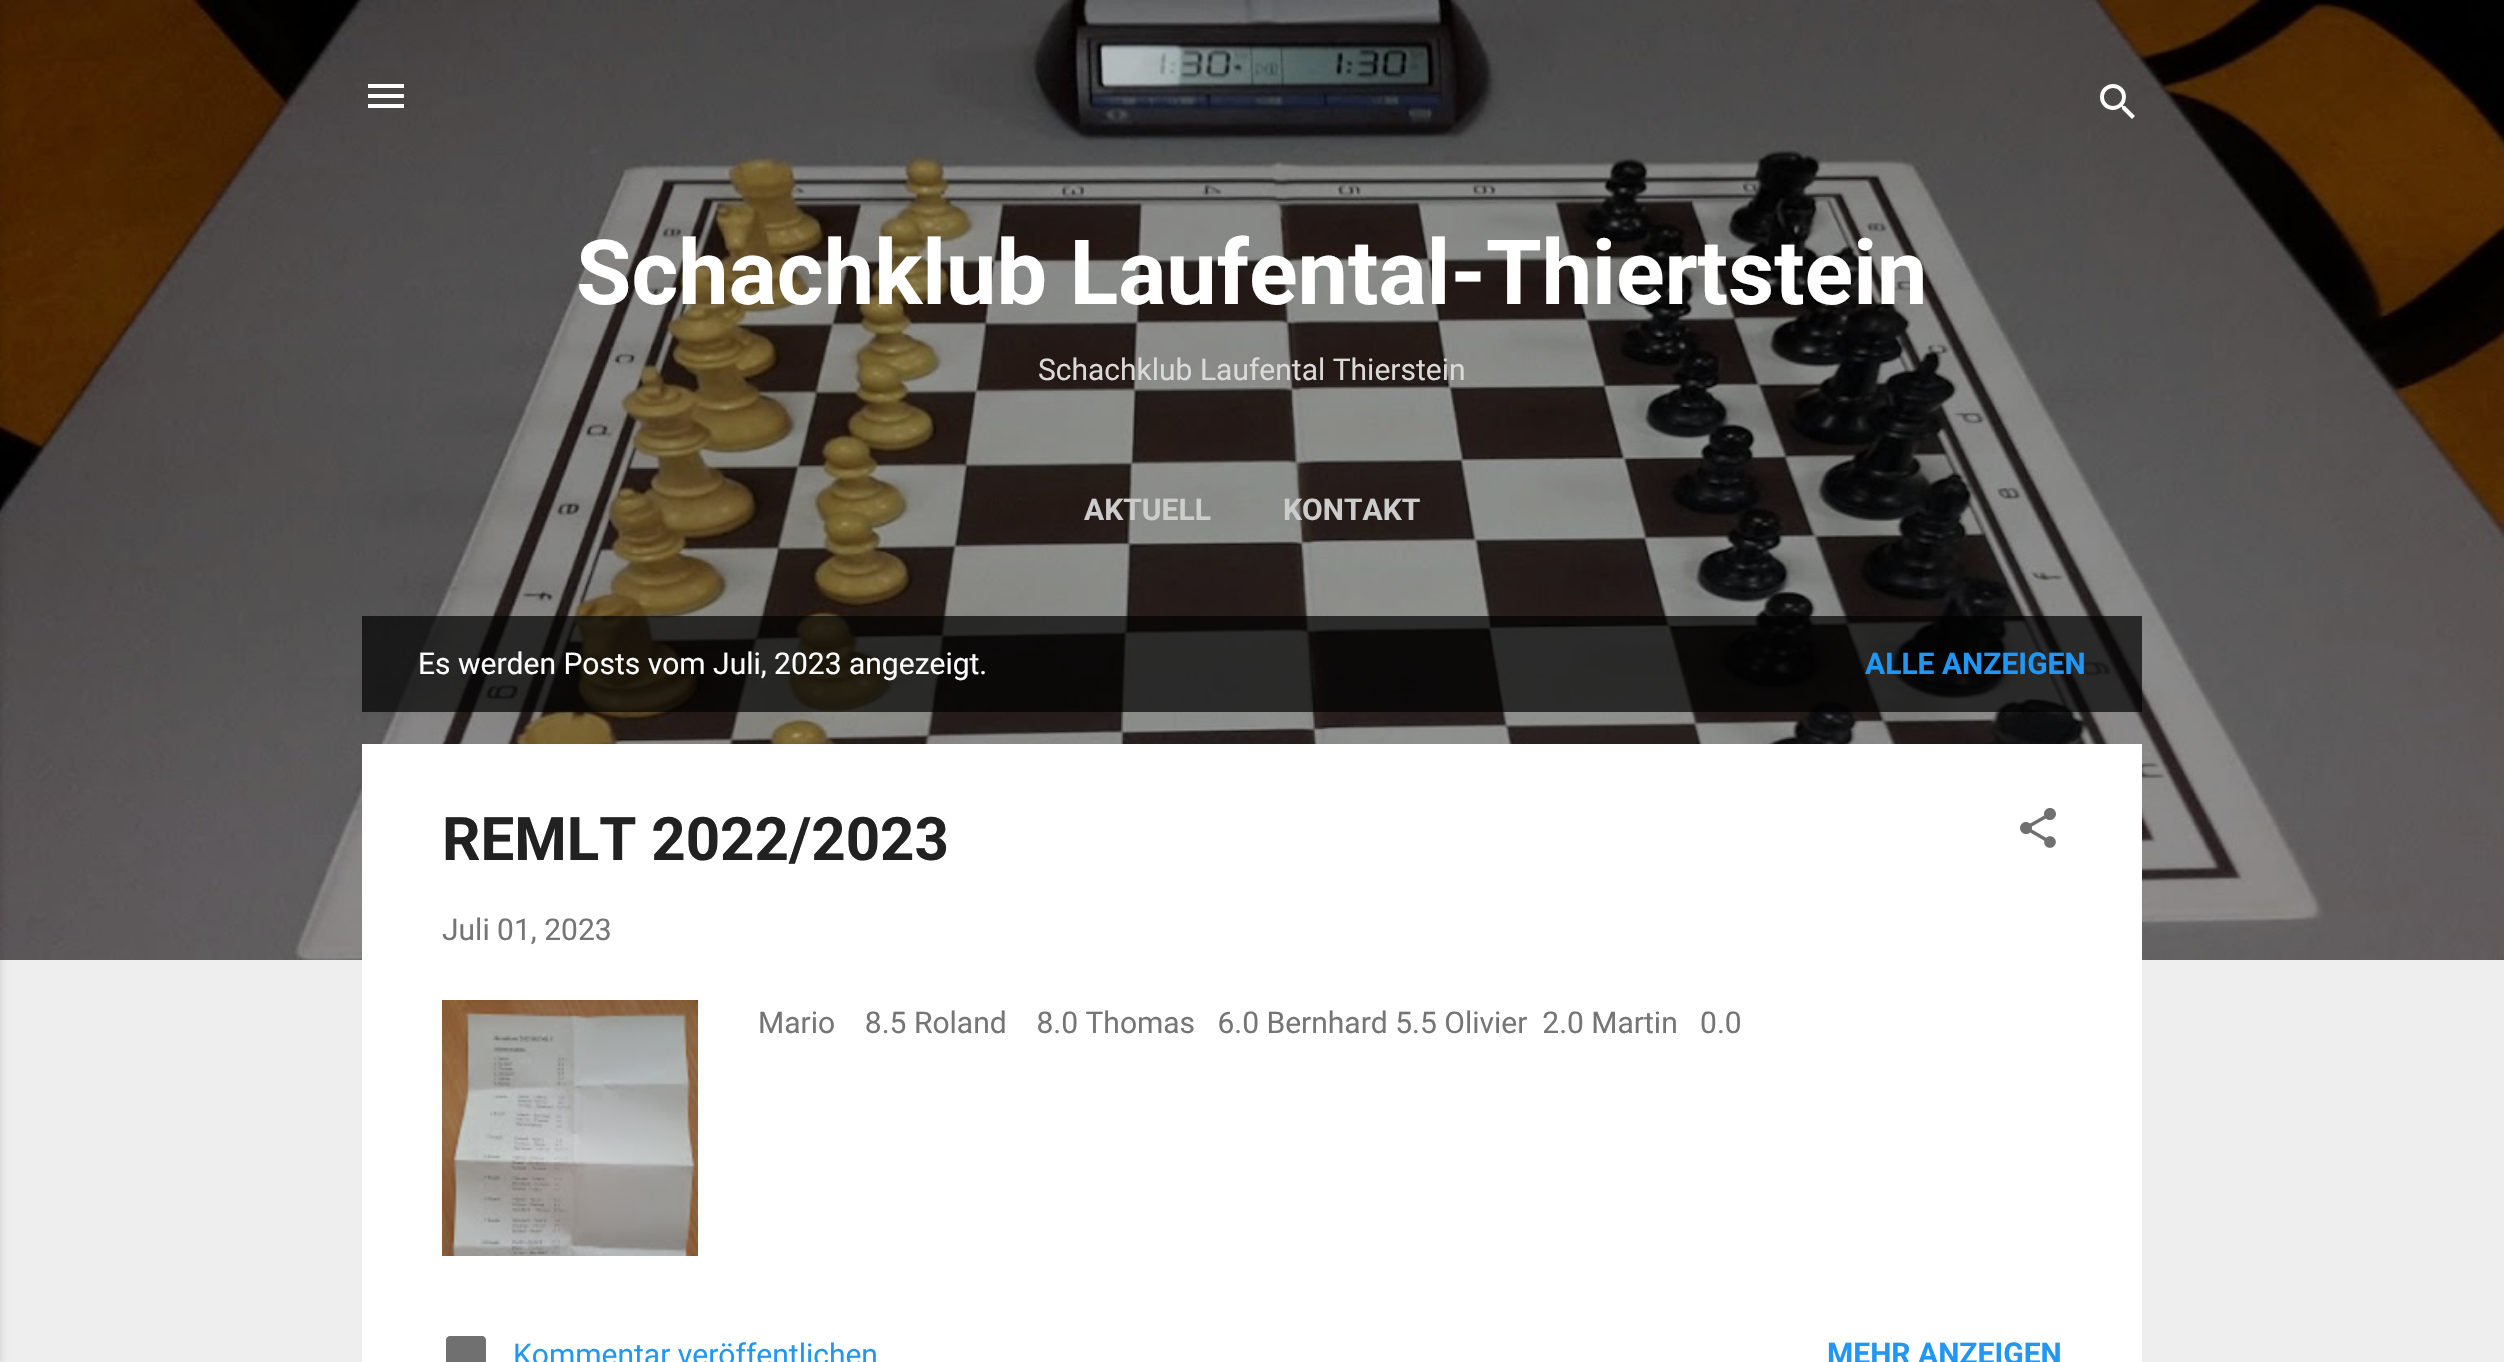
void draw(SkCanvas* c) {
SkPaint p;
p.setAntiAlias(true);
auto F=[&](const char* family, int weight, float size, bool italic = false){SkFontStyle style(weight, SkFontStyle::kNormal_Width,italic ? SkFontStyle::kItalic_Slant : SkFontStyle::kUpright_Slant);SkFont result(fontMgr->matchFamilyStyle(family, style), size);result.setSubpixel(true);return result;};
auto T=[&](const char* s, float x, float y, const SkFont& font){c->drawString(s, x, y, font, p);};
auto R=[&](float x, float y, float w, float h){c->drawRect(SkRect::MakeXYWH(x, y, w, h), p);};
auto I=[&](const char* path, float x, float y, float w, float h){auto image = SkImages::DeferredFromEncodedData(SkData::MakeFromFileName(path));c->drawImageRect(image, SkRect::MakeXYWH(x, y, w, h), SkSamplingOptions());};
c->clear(0xffeeeeee);
I("1.png",0,0,2504,960);
p.setColor(0x1a000000);
p.setMaskFilter(SkMaskFilter::MakeBlur(kNormal_SkBlurStyle, 3));
c->drawRect(SkRect::MakeXYWH(-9,2,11,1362),p);
p.setMaskFilter(nullptr);
I("2.png",368,84,36,24);
I("3.png",2100,84,35,35);
auto f1 = F("Roboto",700,90);
p.setColor(0xffffffff);
T("Schachklub Laufental-Thiertstein",576,304,f1);
auto f2 = F("Roboto",400,30);
p.setColor(0xffdbdad9);
T("Schachklub Laufental Thierstein",1038,380,f2);
auto f3 = F("Roboto",700,30);
p.setColor(0xffcccccc);
T("AKTUELL",1084,520,f3);
T("KONTAKT",1283,520,f3);
p.setColor(0xb3000000);
R(362,616,1780,96);
p.setColor(0xffffffff);
T("Es werden Posts vom Juli, 2023 angezeigt.",418,674,f2);
p.setColor(0xff2196f3);
T("ALLE ANZEIGEN",1865,674,f3);
p.setColor(0xffffffff);
R(362,744,1780,618);
auto f4 = F("Roboto",700,60);
p.setColor(0xff212121);
T("REMLT 2022/2023",442,860,f4);
I("4.png",2020,808,36,40);
p.setColor(0xff757575);
T("Juli 01, 2023",442,940,f2);
I("5.png",442,1000,256,256);
T("Mario    8.5 Roland    8.0 Thomas   6.0 Bernhard 5.5 Olivier  2.0 Martin   0.0",758,1033,f2);
I("6.png",446,1336,40,26);
p.setColor(0xff2196f3);
T("Kommentar veröffentlichen",513,1365,f2);
T("MEHR ANZEIGEN",1827,1364,f3);
}
